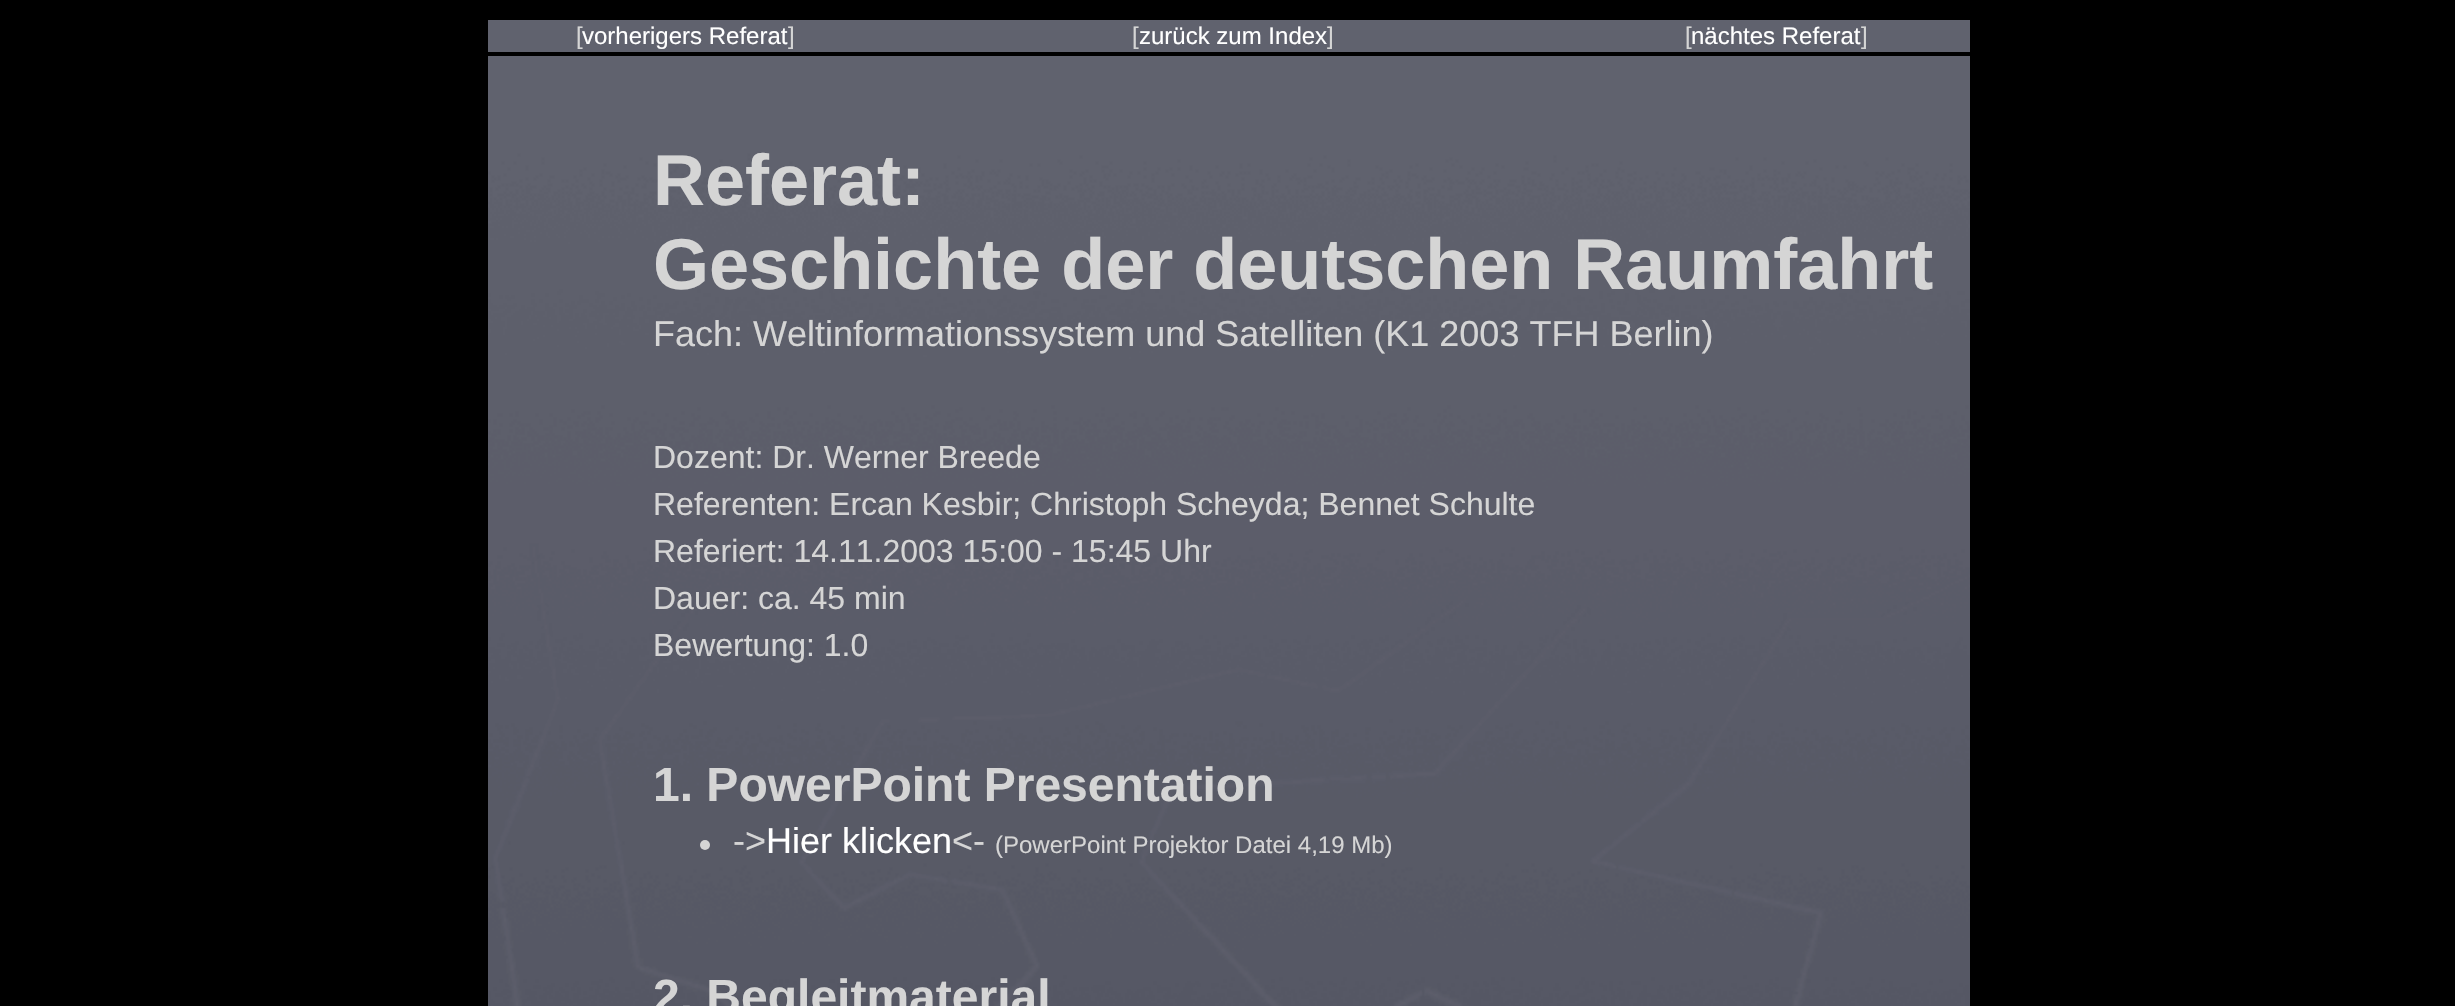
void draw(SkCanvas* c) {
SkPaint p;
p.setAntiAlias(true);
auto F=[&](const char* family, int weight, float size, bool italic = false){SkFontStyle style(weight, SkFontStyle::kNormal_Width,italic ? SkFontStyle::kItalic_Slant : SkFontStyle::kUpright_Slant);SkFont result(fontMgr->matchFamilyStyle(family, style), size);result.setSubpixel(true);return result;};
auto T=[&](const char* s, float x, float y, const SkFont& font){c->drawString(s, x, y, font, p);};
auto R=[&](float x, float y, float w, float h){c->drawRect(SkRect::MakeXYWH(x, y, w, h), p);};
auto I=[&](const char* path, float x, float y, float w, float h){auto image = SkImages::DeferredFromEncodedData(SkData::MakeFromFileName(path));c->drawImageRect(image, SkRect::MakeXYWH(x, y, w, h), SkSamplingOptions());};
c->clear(0xff000000);
p.setColor(0xff60626e);
R(488,20,1482,32);
auto f1 = F("Liberation Sans",400,24);
p.setColor(0xffd5d5d5);
T("[",576,44,f1);
p.setColor(0xffffffff);
T("vorherigers Referat",582,44,f1);
p.setColor(0xffd5d5d5);
T("]",788,44,f1);
T("[",1132,44,f1);
p.setColor(0xffffffff);
T("zurück zum Index",1139,44,f1);
p.setColor(0xffd5d5d5);
T("]",1327,44,f1);
T("[",1685,44,f1);
p.setColor(0xffffffff);
T("nächtes Referat",1691,44,f1);
p.setColor(0xffd5d5d5);
T("]",1861,44,f1);
I("1.png",488,56,1482,950);
auto f2 = F("Liberation Sans",700,72);
T("Referat:",653,205,f2);
T("Geschichte der deutschen Raumfahrt",653,289,f2);
auto f3 = F("Liberation Sans",400,36);
T("Fach: Weltinformationssystem und Satelliten (K1 2003 TFH Berlin)",653,346,f3);
auto f4 = F("Liberation Sans",400,32);
T("Dozent: Dr. Werner Breede",653,468,f4);
T("Referenten: Ercan Kesbir; Christoph Scheyda; Bennet Schulte",653,515,f4);
T("Referiert: 14.11.2003 15:00 - 15:45 Uhr",653,562,f4);
T("Dauer: ca. 45 min",653,609,f4);
T("Bewertung: 1.0",653,656,f4);
auto f5 = F("Liberation Sans",700,48);
T("1. PowerPoint Presentation",653,801,f5);
c->drawCircle(705,845,5,p);
T("->",733,853,f3);
p.setColor(0xffffffff);
T("Hier klicken",766,853,f3);
p.setColor(0xffd5d5d5);
T("<-",952,853,f3);
T("(PowerPoint Projektor Datei 4,19 Mb)",995,853,f1);
T("2. Begleitmaterial",653,1013,f5);
}
